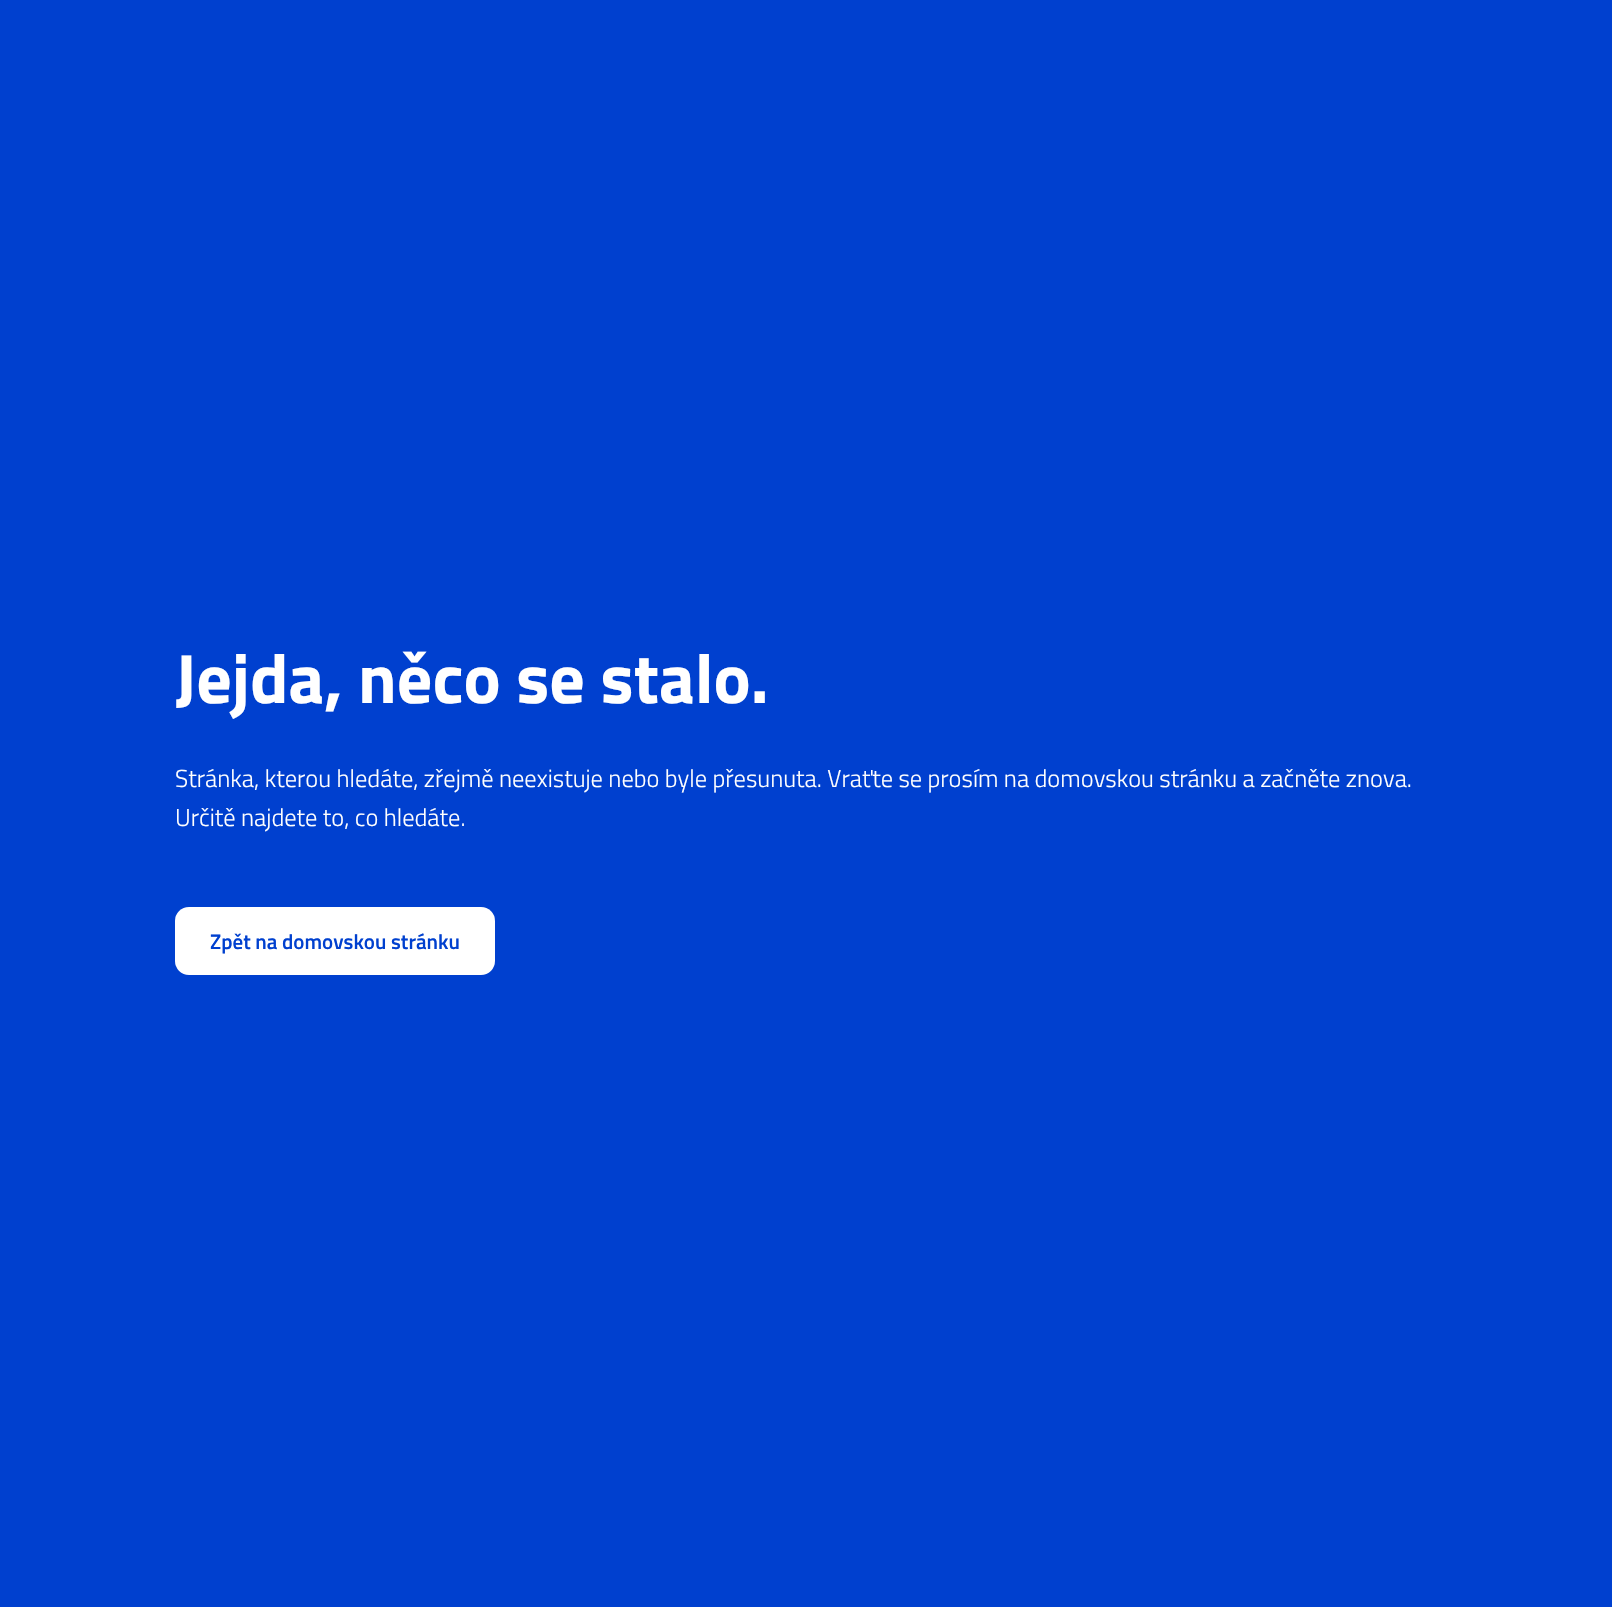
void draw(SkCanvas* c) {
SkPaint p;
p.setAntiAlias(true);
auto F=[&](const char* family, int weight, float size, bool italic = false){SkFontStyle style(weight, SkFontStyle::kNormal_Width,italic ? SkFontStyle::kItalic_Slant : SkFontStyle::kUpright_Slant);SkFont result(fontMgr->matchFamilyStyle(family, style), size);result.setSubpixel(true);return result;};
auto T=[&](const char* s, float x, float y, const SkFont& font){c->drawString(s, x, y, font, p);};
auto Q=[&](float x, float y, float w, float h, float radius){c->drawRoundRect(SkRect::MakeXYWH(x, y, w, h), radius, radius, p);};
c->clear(0xff0040cf);
auto f1 = F("Titillium Web",700,70);
p.setColor(0xffffffff);
T("Jejda, něco se stalo.",175,703,f1);
auto f2 = F("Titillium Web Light",300,24.5);
T("Stránka, kterou hledáte, zřejmě neexistuje nebo byle přesunuta. Vraťte se prosím na domovskou stránku a začněte znova.",175,787,f2);
T("Určitě najdete to, co hledáte.",175,826,f2);
Q(175,907,320,68,14);
auto f3 = F("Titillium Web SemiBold",600,21);
p.setColor(0xff0040cf);
T("Zpět na domovskou stránku",210,949,f3);
}
